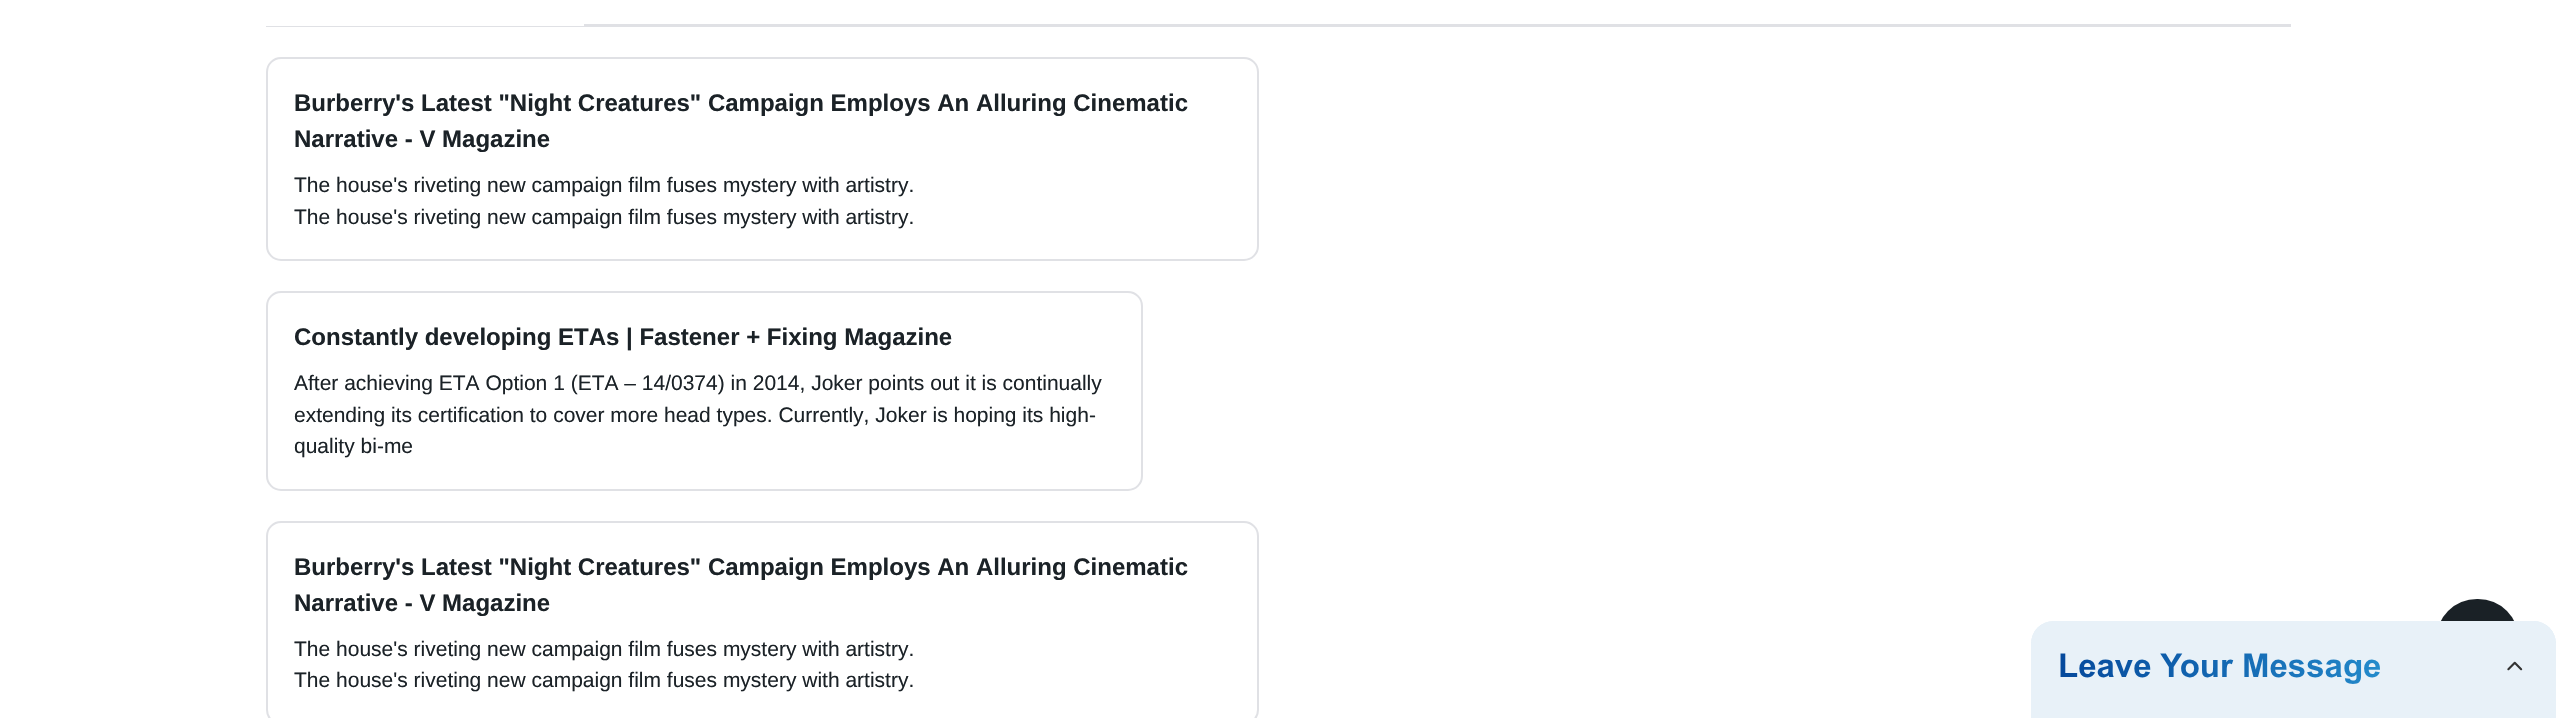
void draw(SkCanvas* c) {
SkPaint p;
p.setAntiAlias(true);
auto F=[&](const char* family, int weight, float size, bool italic = false){SkFontStyle style(weight, SkFontStyle::kNormal_Width,italic ? SkFontStyle::kItalic_Slant : SkFontStyle::kUpright_Slant);SkFont result(fontMgr->matchFamilyStyle(family, style), size);result.setSubpixel(true);return result;};
auto T=[&](const char* s, float x, float y, const SkFont& font){c->drawString(s, x, y, font, p);};
auto R=[&](float x, float y, float w, float h){c->drawRect(SkRect::MakeXYWH(x, y, w, h), p);};
auto Q=[&](float x, float y, float w, float h, float radius){c->drawRoundRect(SkRect::MakeXYWH(x, y, w, h), radius, radius, p);};
auto I=[&](const char* path, float x, float y, float w, float h){auto image = SkImages::DeferredFromEncodedData(SkData::MakeFromFileName(path));c->drawImageRect(image, SkRect::MakeXYWH(x, y, w, h), SkSamplingOptions());};
c->clear(0xffffffff);
p.setColor(0xffe0e1e5);
R(266,24,2025,3);
p.setColor(0xffffffff);
R(266,24,318,2);
p.setStroke(true);
p.setStrokeWidth(2);
p.setColor(0xffe0e1e5);
c->drawRoundRect(SkRect::MakeXYWH(267,58,991,202),14,14,p);
auto f1 = F("Liberation Sans",700,24);
p.setStroke(false);
p.setColor(0xff1b2227);
T("Burberry's Latest \"Night Creatures\" Campaign Employs An Alluring Cinematic",294,111,f1);
T("Narrative - V Magazine",294,147,f1);
auto f2 = F("Liberation Sans",400,21);
T("The house's riveting new campaign film fuses mystery with artistry.",294,192,f2);
T("The house's riveting new campaign film fuses mystery with artistry.",294,224,f2);
p.setStroke(true);
p.setColor(0xffe0e1e5);
c->drawRoundRect(SkRect::MakeXYWH(267,292,875,198),14,14,p);
p.setStroke(false);
p.setColor(0xff1b2227);
T("Constantly developing ETAs | Fastener + Fixing Magazine",294,345,f1);
T("After achieving ETA Option 1 (ETA – 14/0374) in 2014, Joker points out it is continually",294,390,f2);
T("extending its certification to cover more head types. Currently, Joker is hoping its high-",294,422,f2);
T("quality bi-me",294,453,f2);
p.setStroke(true);
p.setColor(0xffe0e1e5);
c->drawRoundRect(SkRect::MakeXYWH(267,522,991,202),14,14,p);
p.setStroke(false);
p.setColor(0xff1b2227);
T("Burberry's Latest \"Night Creatures\" Campaign Employs An Alluring Cinematic",294,575,f1);
T("Narrative - V Magazine",294,611,f1);
T("The house's riveting new campaign film fuses mystery with artistry.",294,656,f2);
T("The house's riveting new campaign film fuses mystery with artistry.",294,687,f2);
p.setColor(0xff1a2126);
Q(2436,599,83,82,41);
I("1.png",2031,621,525,97);
}
